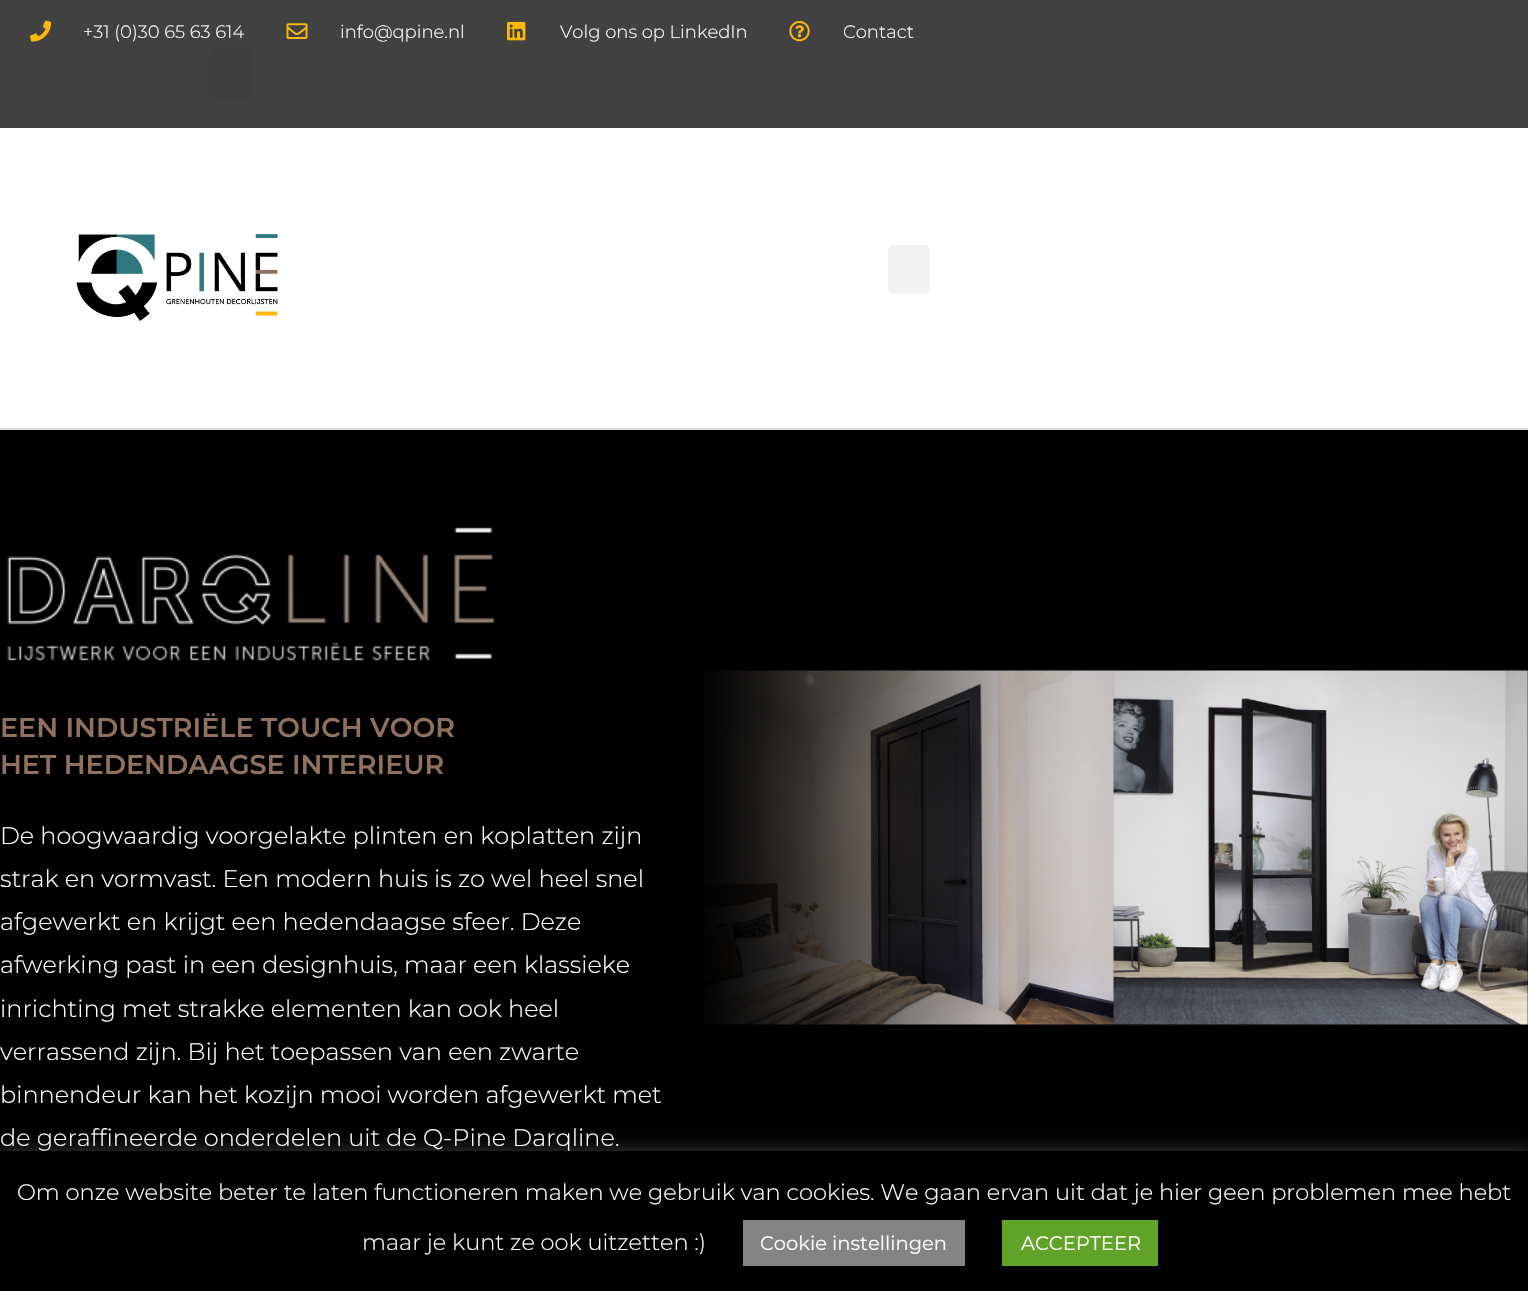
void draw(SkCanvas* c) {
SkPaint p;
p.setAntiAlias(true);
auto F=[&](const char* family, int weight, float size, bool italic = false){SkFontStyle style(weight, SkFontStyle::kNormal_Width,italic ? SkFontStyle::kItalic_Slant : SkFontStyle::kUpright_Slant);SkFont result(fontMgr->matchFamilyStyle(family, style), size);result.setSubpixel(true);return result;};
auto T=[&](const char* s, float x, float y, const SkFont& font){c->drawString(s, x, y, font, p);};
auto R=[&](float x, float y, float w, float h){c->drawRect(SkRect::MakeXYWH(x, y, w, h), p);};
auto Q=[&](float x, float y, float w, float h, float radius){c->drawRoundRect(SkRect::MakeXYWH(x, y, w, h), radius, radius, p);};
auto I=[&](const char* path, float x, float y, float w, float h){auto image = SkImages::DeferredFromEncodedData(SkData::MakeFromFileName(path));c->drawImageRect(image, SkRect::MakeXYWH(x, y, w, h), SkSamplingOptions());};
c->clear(0xff000000);
p.setColor(0xff414141);
R(0,0,1528,128);
I("1.png",30,20,21,22);
auto f1 = F("Montserrat",300,18);
p.setColor(0xffffffff);
T("+31 (0)30 65 63 614",83,38,f1);
I("2.png",286,23,22,16);
T("info@qpine.nl",340,38,f1);
I("3.png",507,21,19,20);
T("Volg ons op LinkedIn",560,38,f1);
I("4.png",789,21,21,21);
T("Contact",843,38,f1);
p.setColor(0xff3e3e3e);
Q(209,48,42,50,5);
p.setColor(0xffffffff);
R(0,128,1528,300);
p.setColor(0xffd8d8d8);
R(0,428,1528,2);
I("5.png",76,234,202,87);
p.setColor(0xfff2f2f2);
Q(888,245,42,49,5);
I("6.png",7,527,489,134);
auto f2 = F("Montserrat",600,27);
p.setColor(0xff91705d);
T("EEN INDUSTRIËLE TOUCH VOOR",0,737,f2);
T("HET HEDENDAAGSE INTERIEUR",0,774,f2);
auto f3 = F("Montserrat",300,24);
p.setColor(0xffffffff);
T("De hoogwaardig voorgelakte plinten en koplatten zijn",0,844,f3);
T("strak en vormvast. Een modern huis is zo wel heel snel",0,887,f3);
T("afgewerkt en krijgt een hedendaagse sfeer. Deze",0,930,f3);
T("afwerking past in een designhuis, maar een klassieke",0,973,f3);
T("inrichting met strakke elementen kan ook heel",0,1017,f3);
T("verrassend zijn. Bij het toepassen van een zwarte",0,1060,f3);
T("binnendeur kan het kozijn mooi worden afgewerkt met",0,1103,f3);
T("de geraffineerde onderdelen uit de Q-Pine Darqline.",0,1146,f3);
I("7.png",704,670,824,355);
p.setColor(0x4dacabab);
p.setMaskFilter(SkMaskFilter::MakeBlur(kNormal_SkBlurStyle, 7.5));
c->drawRect(SkRect::MakeXYWH(0,1149,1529,141),p);
p.setMaskFilter(nullptr);
p.setColor(0xff000000);
R(0,1151,1528,140);
auto f4 = F("Montserrat",300,22.5);
p.setColor(0xffffffff);
T("Om onze website beter te laten functioneren maken we gebruik van cookies. We gaan ervan uit dat je hier geen problemen mee hebt",17,1200,f4);
T("maar je kunt ze ook uitzetten :)",362,1250,f4);
p.setColor(0xff848484);
R(743,1220,222,46);
auto f5 = F("Montserrat",400,19.5);
p.setColor(0xffffffff);
T("Cookie instellingen",760,1250,f5);
p.setColor(0xff61a229);
R(1002,1220,156,46);
p.setColor(0xffffffff);
T("ACCEPTEER",1021,1250,f5);
}
